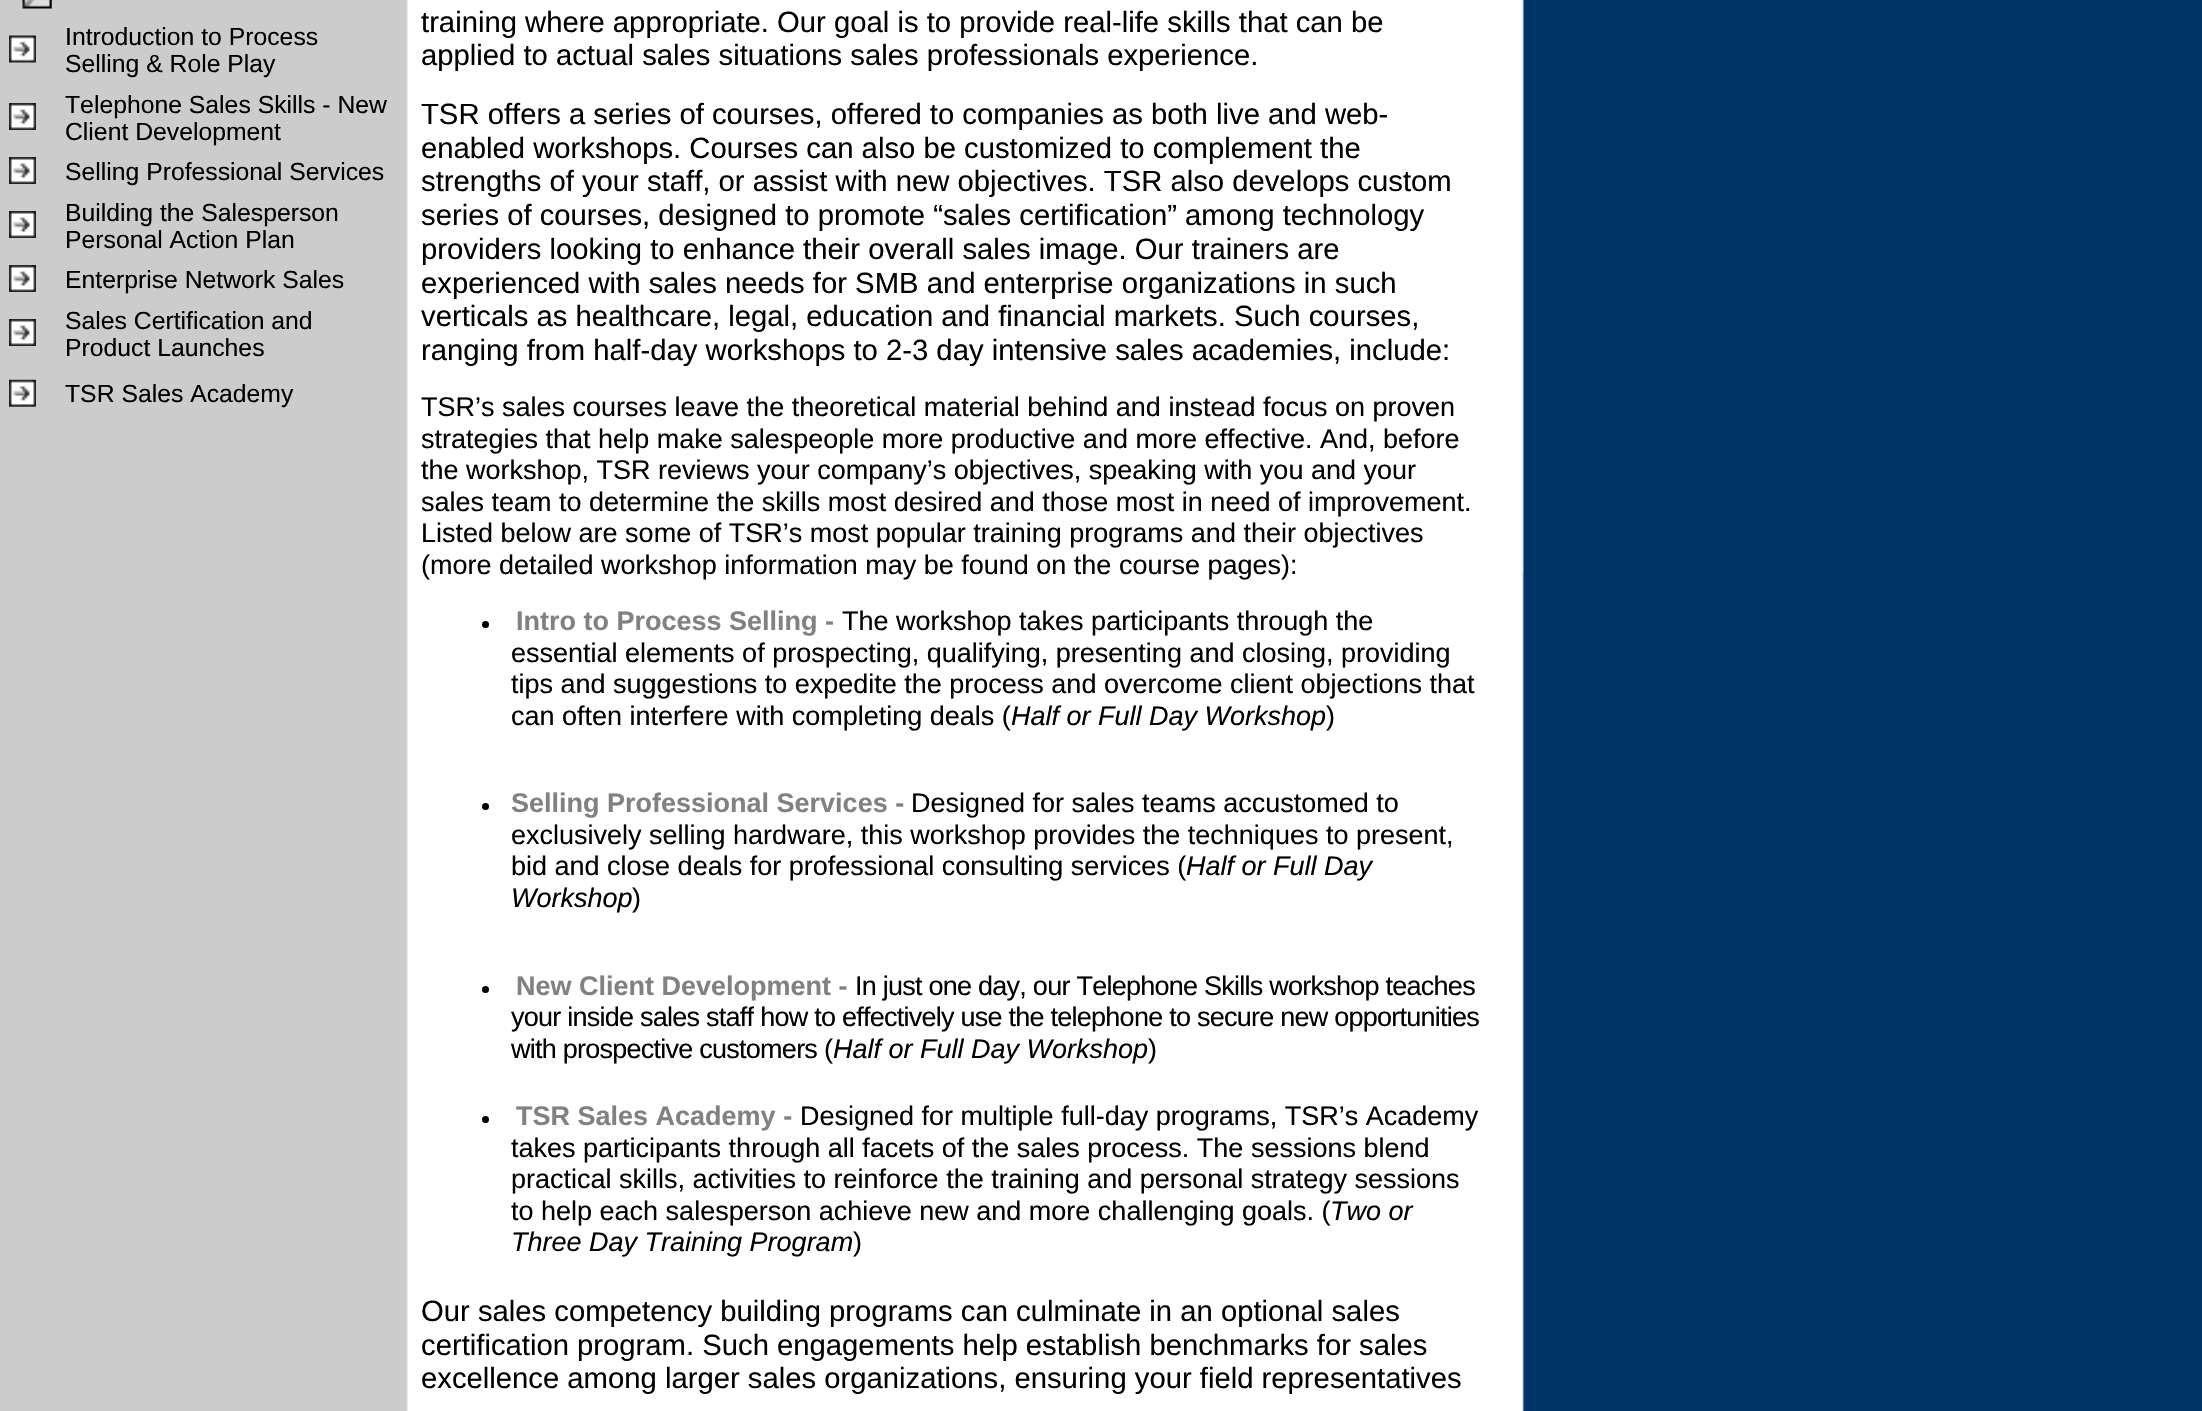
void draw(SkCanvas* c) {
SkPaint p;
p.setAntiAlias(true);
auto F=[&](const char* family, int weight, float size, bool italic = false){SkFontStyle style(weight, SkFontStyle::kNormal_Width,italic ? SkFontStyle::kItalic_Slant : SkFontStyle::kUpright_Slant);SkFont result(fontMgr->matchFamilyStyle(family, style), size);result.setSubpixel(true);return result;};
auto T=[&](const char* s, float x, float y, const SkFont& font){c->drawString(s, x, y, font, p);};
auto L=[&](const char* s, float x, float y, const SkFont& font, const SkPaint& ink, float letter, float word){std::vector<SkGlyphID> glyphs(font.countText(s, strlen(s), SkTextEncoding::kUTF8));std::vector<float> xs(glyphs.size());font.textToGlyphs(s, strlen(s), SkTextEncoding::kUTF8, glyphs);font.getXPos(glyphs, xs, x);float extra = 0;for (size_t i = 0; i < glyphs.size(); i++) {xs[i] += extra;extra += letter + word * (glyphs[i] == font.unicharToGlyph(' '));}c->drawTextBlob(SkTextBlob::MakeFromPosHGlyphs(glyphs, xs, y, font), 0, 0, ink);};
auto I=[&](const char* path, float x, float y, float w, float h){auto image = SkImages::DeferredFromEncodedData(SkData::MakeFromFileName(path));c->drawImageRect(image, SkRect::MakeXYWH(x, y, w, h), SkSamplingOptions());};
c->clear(0xffffffff);
I("1.png",0,0,2202,1411);
I("2.png",22,0,30,9);
I("3.png",9,35,27,28);
auto f1 = F("Liberation Sans",400,24.75);
p.setColor(0xff000000);
T("Introduction to Process",65,45,f1);
T("Selling & Role Play",65,72,f1);
I("4.png",9,103,27,27);
T("Telephone Sales Skills - New",65,113,f1);
T("Client Development",65,140,f1);
I("4.png",9,157,27,27);
T("Selling Professional Services",65,180,f1);
I("4.png",9,211,27,27);
T("Building the Salesperson",65,221,f1);
T("Personal Action Plan",65,248,f1);
I("4.png",9,265,27,27);
T("Enterprise Network Sales",65,288,f1);
I("4.png",9,319,27,27);
T("Sales Certification and",65,329,f1);
T("Product Launches",65,356,f1);
I("5.png",9,379,27,28);
T("TSR Sales Academy",65,402,f1);
auto f2 = F("Liberation Sans",400,29.25);
T("training where appropriate. Our goal is to provide real-life skills that can be",421,32,f2);
T("applied to actual sales situations sales professionals experience.",421,65,f2);
T("TSR offers a series of courses, offered to companies as both live and web-",421,124,f2);
T("enabled workshops. Courses can also be customized to complement the",421,158,f2);
T("strengths of your staff, or assist with new objectives. TSR also develops custom",421,191,f2);
T("series of courses, designed to promote “sales certification” among technology",421,225,f2);
T("providers looking to enhance their overall sales image. Our trainers are",421,259,f2);
T("experienced with sales needs for SMB and enterprise organizations in such",421,293,f2);
T("verticals as healthcare, legal, education and financial markets. Such courses,",421,326,f2);
T("ranging from half-day workshops to 2-3 day intensive sales academies, include:",421,360,f2);
auto f3 = F("Liberation Sans",400,27);
T("TSR’s sales courses leave the theoretical material behind and instead focus on proven",421,416,f3);
T("strategies that help make salespeople more productive and more effective. And, before",421,448,f3);
T("the workshop, TSR reviews your company’s objectives, speaking with you and your",421,479,f3);
T("sales team to determine the skills most desired and those most in need of improvement.",421,511,f3);
T("Listed below are some of TSR’s most popular training programs and their objectives",421,542,f3);
T("(more detailed workshop information may be found on the course pages):",421,574,f3);
c->drawCircle(485.5,624.5,3.5,p);
auto f4 = F("Liberation Sans",700,27);
p.setColor(0xff818181);
T("Intro to Process Selling -",516,630,f4);
p.setColor(0xff000000);
T("The workshop takes participants through the",842,630,f3);
T("essential elements of prospecting, qualifying, presenting and closing, providing",511,662,f3);
T("tips and suggestions to expedite the process and overcome client objections that",511,693,f3);
T("can often interfere with completing deals (",511,725,f3);
auto f5 = F("Liberation Sans",400,27,true);
T("Half or Full Day Workshop",1011,725,f5);
T(")",1326,725,f3);
c->drawCircle(485.5,806.5,3.5,p);
p.setColor(0xff818181);
T("Selling Professional Services -",511,812,f4);
p.setColor(0xff000000);
T("Designed for sales teams accustomed to",911,812,f3);
T("exclusively selling hardware, this workshop provides the techniques to present,",511,844,f3);
T("bid and close deals for professional consulting services (",511,875,f3);
T("Half or Full Day",1186,875,f5);
T("Workshop",511,907,f5);
T(")",632,907,f3);
c->drawCircle(485.5,989.5,3.5,p);
p.setColor(0xff818181);
T("New Client Development -",516,995,f4);
p.setColor(0xff000000);
L("In just one day, our Telephone Skills workshop teaches",855,995,f3,p,-.75,0);
L("your inside sales staff how to effectively use the telephone to secure new opportunities",511,1026,f3,p,-.75,0);
L("with prospective customers",511,1058,f3,p,-.75,0);
T("(",824,1058,f3);
T("Half or Full Day Workshop",833,1058,f5);
T(")",1148,1058,f3);
c->drawCircle(485.5,1119.5,3.5,p);
p.setColor(0xff818181);
T("TSR Sales Academy -",516,1125,f4);
p.setColor(0xff000000);
T("Designed for multiple full-day programs, TSR’s Academy",800,1125,f3);
T("takes participants through all facets of the sales process. The sessions blend",511,1157,f3);
T("practical skills, activities to reinforce the training and personal strategy sessions",511,1188,f3);
T("to help each salesperson achieve new and more challenging goals. (",511,1220,f3);
T("Two or",1330,1220,f5);
T("Three Day Training Program",511,1251,f5);
T(")",853,1251,f3);
T("Our sales competency building programs can culminate in an optional sales",421,1321,f2);
T("certification program. Such engagements help establish benchmarks for sales",421,1355,f2);
T("excellence among larger sales organizations, ensuring your field representatives",421,1388,f2);
I("6.png",1522,0,2,571);
}
